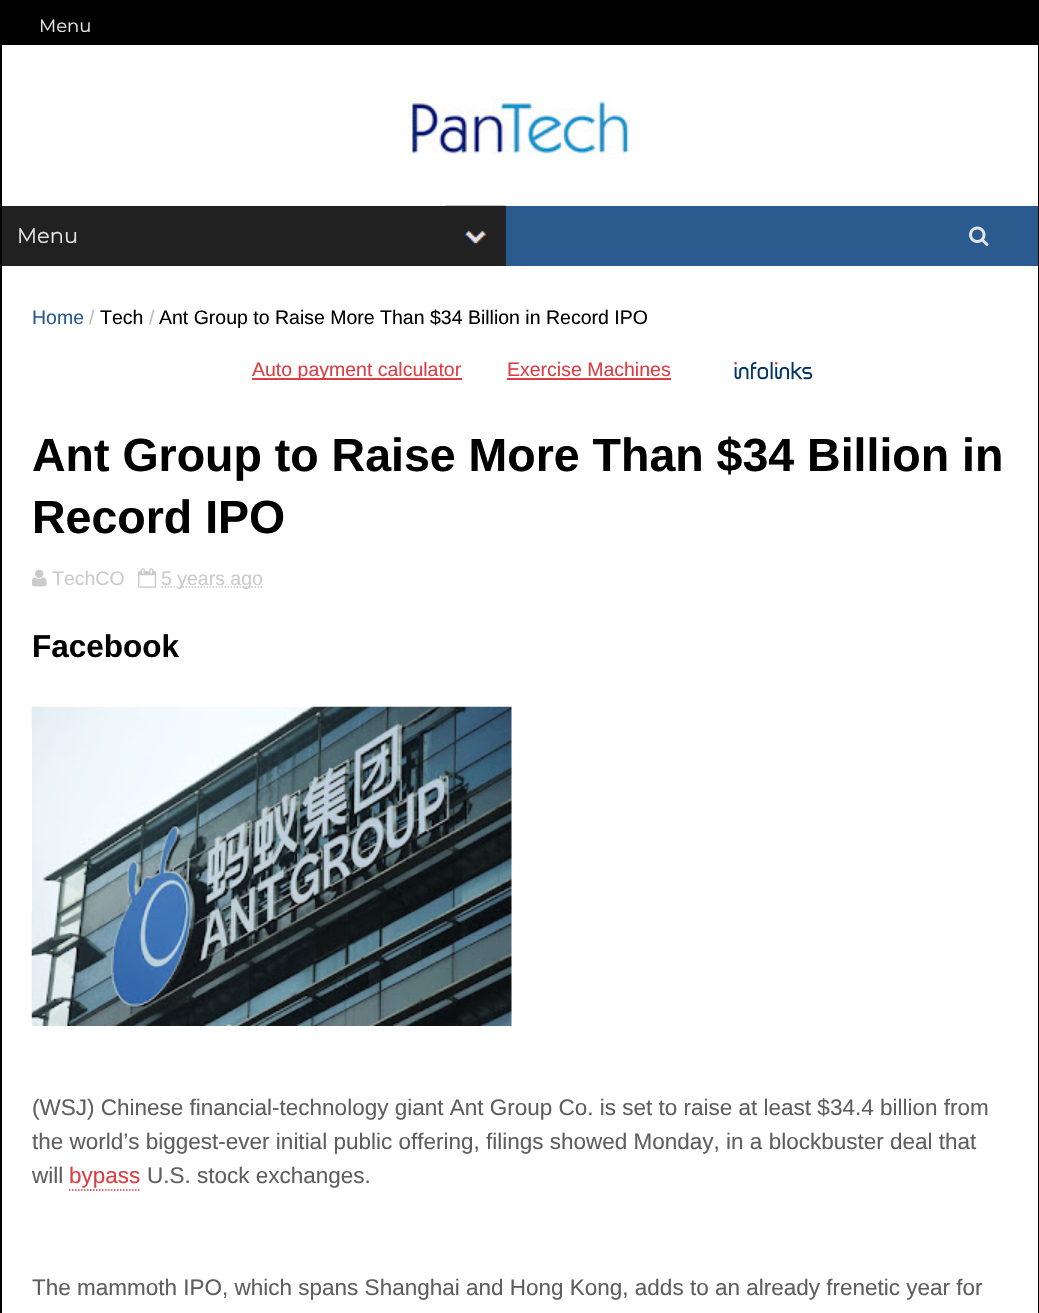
void draw(SkCanvas* c) {
SkPaint p;
p.setAntiAlias(true);
auto F=[&](const char* family, int weight, float size, bool italic = false){SkFontStyle style(weight, SkFontStyle::kNormal_Width,italic ? SkFontStyle::kItalic_Slant : SkFontStyle::kUpright_Slant);SkFont result(fontMgr->matchFamilyStyle(family, style), size);result.setSubpixel(true);return result;};
auto T=[&](const char* s, float x, float y, const SkFont& font){c->drawString(s, x, y, font, p);};
auto R=[&](float x, float y, float w, float h){c->drawRect(SkRect::MakeXYWH(x, y, w, h), p);};
auto I=[&](const char* path, float x, float y, float w, float h){auto image = SkImages::DeferredFromEncodedData(SkData::MakeFromFileName(path));c->drawImageRect(image, SkRect::MakeXYWH(x, y, w, h), SkSamplingOptions());};
auto P=[&](const char* data, bool evenOdd = false){SkPath result = *SkParsePath::FromSVGString(data);if (evenOdd) result.setFillType(SkPathFillType::kEvenOdd);return result;};
c->clear(0xffffffff);
p.setColor(0xff010101);
R(1038,0,1,1313);
R(0,0,2,1313);
R(2,0,1036,45);
auto f1 = F("Montserrat",400,18);
p.setColor(0xffe4e4e4);
T("Menu",39,32,f1);
I("1.png",408,96,225,59);
p.setColor(0xff2a5a8e);
R(506,206,532,60);
p.setColor(0xff212121);
R(2,206,504,60);
I("2.png",445,205,61,39);
auto f2 = F("Montserrat",400,21);
p.setColor(0xffe4e4e4);
T("Menu",17,243,f2);
I("3.png",969,226,20,20);
auto f3 = F("Arimo",400,19.5);
p.setColor(0xff2a5a8e);
T("Home",32,324,f3);
p.setColor(0xffbdbdbd);
T("/",89,324,f3);
p.setColor(0xff010101);
T("Tech",100,324,f3);
p.setColor(0xffbdbdbd);
T("/",149,324,f3);
p.setColor(0xff010101);
T("Ant Group to Raise More Than $34 Billion in Record IPO",159,324,f3);
p.setColor(0xffdd3c42);
R(252,378,210,2);
auto f4 = F("Liberation Sans",400,19.5);
T("Auto payment calculator",252,376,f4);
T("Exercise Machines",507,376,f4);
R(507,378,164,2);
I("4.png",734,362,79,18);
auto f5 = F("Arimo",700,46.5);
p.setColor(0xff010101);
T("Ant Group to Raise More Than $34 Billion in",32,471,f5);
T("Record IPO",32,533,f5);
I("5.png",32,569,15,18);
p.setColor(0xffcbcbcb);
T("TechCO",52,585,f3);
I("6.png",138,568,19,20);
p.setStroke(true);
p.setStrokeWidth(1.5);
p.setPathEffect(SkDashPathEffect::Make({{1.5f,1.5f}}, 0));
c->drawPath(P("M161.5 587h102"),p);
p.setPathEffect(nullptr);
p.setStroke(false);
T("5 years ago",161,585,f3);
auto f6 = F("Arimo",700,31.5);
p.setColor(0xff010101);
T("Facebook",32,657,f6);
I("7.png",31,706,481,320);
auto f7 = F("Arimo",400,22.5);
p.setColor(0xff5e5e5e);
T("(WSJ) Chinese financial-technology giant Ant Group Co. is set to raise at least $34.4 billion from",32,1115,f7);
T("the world’s biggest-ever initial public offering, filings showed Monday, in a blockbuster deal that",32,1149,f7);
T("will",32,1183,f7);
p.setColor(0xffdd3c42);
T("bypass",69,1183,f7);
p.setStroke(true);
p.setPathEffect(SkDashPathEffect::Make({{1.5f,1.5f}}, 0));
c->drawPath(P("M69 1190h72"),p);
p.setPathEffect(nullptr);
p.setStroke(false);
p.setColor(0xff5e5e5e);
T("U.S. stock exchanges.",147,1183,f7);
T("The mammoth IPO, which spans Shanghai and Hong Kong, adds to an already frenetic year for",32,1295,f7);
}
